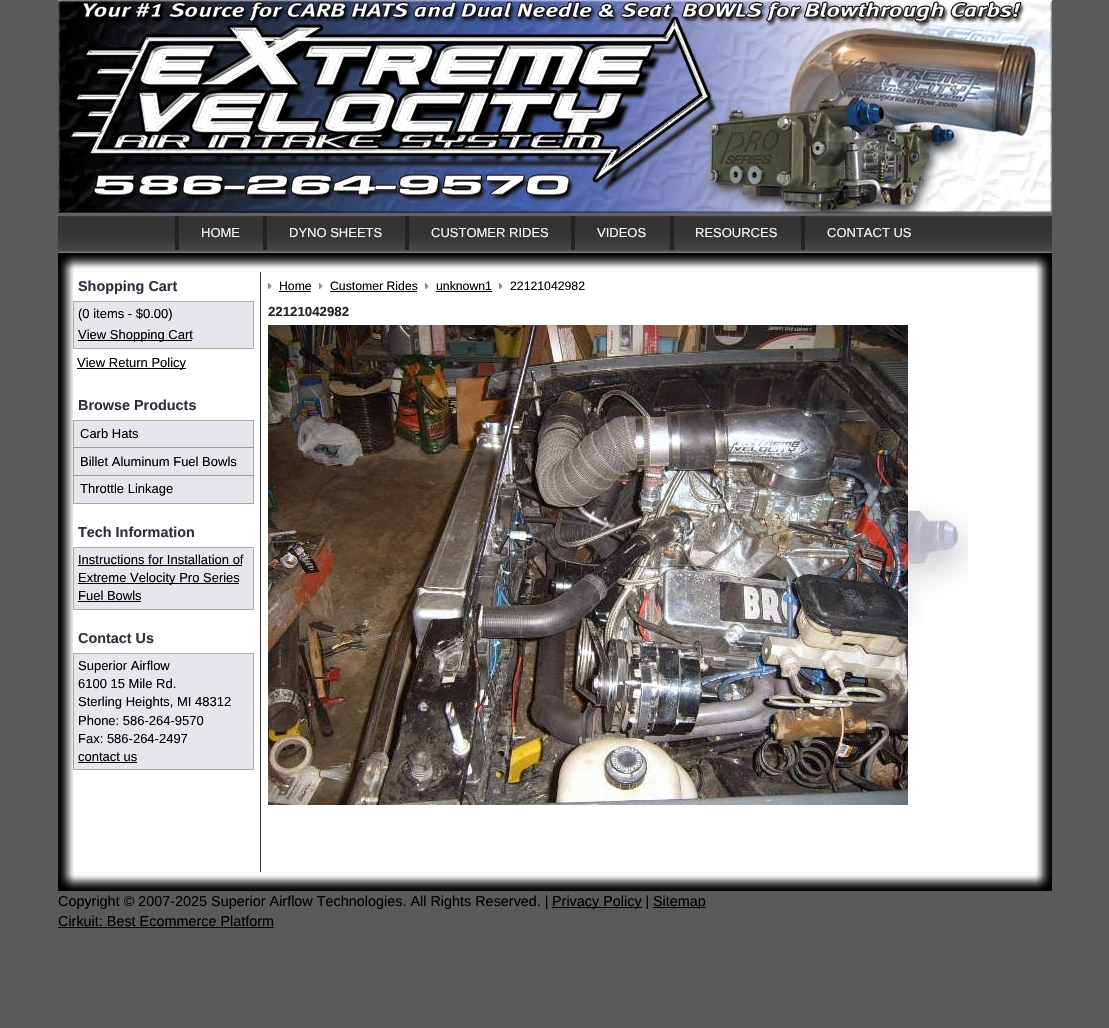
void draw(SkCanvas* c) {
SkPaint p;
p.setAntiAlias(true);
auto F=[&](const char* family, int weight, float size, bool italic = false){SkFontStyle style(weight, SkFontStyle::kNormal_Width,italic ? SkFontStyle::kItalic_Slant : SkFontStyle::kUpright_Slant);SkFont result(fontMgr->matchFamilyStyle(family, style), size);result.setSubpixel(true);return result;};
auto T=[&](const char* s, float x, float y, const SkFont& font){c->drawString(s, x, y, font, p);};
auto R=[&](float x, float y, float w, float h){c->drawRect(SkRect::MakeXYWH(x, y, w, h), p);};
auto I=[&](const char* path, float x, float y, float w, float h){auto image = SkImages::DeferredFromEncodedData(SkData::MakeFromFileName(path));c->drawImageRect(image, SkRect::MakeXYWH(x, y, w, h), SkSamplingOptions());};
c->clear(0xff5a5a5a);
I("1.png",58,0,994,213);
I("2.png",58,213,994,40);
auto f1 = F("Liberation Sans",400,13);
p.setColor(0xfff6f6f6);
T("HOME",201,237,f1);
p.setColor(0xff232323);
R(175,216,4,34);
p.setColor(0xfff6f6f6);
T("DYNO SHEETS",289,237,f1);
p.setColor(0xff232323);
R(263,216,4,34);
p.setColor(0xfff6f6f6);
T("CUSTOMER RIDES",431,237,f1);
p.setColor(0xff232323);
R(405,216,4,34);
p.setColor(0xfff6f6f6);
T("VIDEOS",597,237,f1);
p.setColor(0xff232323);
R(571,216,4,34);
p.setColor(0xfff6f6f6);
T("RESOURCES",695,237,f1);
p.setColor(0xff232323);
R(670,216,4,34);
p.setColor(0xfff6f6f6);
T("CONTACT US",827,237,f1);
p.setColor(0xff232323);
R(801,216,4,34);
I("3.png",58,272,994,600);
p.setColor(0xff000000);
R(74,253,962,1);
I("4.png",74,254,962,18);
I("5.png",58,253,16,19);
I("6.png",1036,253,16,19);
auto f2 = F("Liberation Sans",700,14.4);
p.setColor(0xff2f2f3c);
T("Shopping Cart",78,291,f2);
p.setColor(0xffe5e7ec);
c->drawRect(SkRect::MakeXYWH(73.5,301.5,180,47),p);
p.setStroke(true);
p.setStrokeWidth(1);
p.setColor(0xffaaaaaa);
c->drawRect(SkRect::MakeXYWH(73.5,301.5,180,47),p);
p.setStroke(false);
p.setColor(0xff000000);
T("(0 items - $0.00)",78,318,f1);
R(78,340,114,1);
T("View Shopping Cart",78,339,f1);
R(77,368,109,1);
T("View Return Policy",77,367,f1);
p.setColor(0xff2f2f3c);
T("Browse Products",78,410,f2);
p.setColor(0xffe5e7ec);
c->drawRect(SkRect::MakeXYWH(73.5,420.5,180,83),p);
p.setStroke(true);
p.setColor(0xffaaaaaa);
c->drawRect(SkRect::MakeXYWH(73.5,420.5,180,83),p);
p.setStroke(false);
p.setColor(0xff999999);
R(74,447,179,1);
p.setColor(0xff000000);
T("Carb Hats",80,438,f1);
p.setColor(0xff999999);
R(74,475,179,1);
p.setColor(0xff000000);
T("Billet Aluminum Fuel Bowls",80,466,f1);
T("Throttle Linkage",80,493,f1);
p.setColor(0xff2f2f3c);
T("Tech Information",78,537,f2);
p.setColor(0xffe5e7ec);
c->drawRect(SkRect::MakeXYWH(73.5,547.5,180,62),p);
p.setStroke(true);
p.setColor(0xffaaaaaa);
c->drawRect(SkRect::MakeXYWH(73.5,547.5,180,62),p);
p.setStroke(false);
p.setColor(0xff000000);
T("Instructions for Installation of",78,564,f1);
R(78,565,164,1);
R(78,583,161,1);
T("Extreme Velocity Pro Series",78,582,f1);
T("Fuel Bowls",78,600,f1);
R(78,601,63,1);
p.setColor(0xff2f2f3c);
T("Contact Us",78,643,f2);
p.setColor(0xffe5e7ec);
c->drawRect(SkRect::MakeXYWH(73.5,653.5,180,116),p);
p.setStroke(true);
p.setColor(0xffaaaaaa);
c->drawRect(SkRect::MakeXYWH(73.5,653.5,180,116),p);
p.setStroke(false);
p.setColor(0xff000000);
T("Superior Airflow",78,670,f1);
T("6100 15 Mile Rd.",78,688,f1);
T("Sterling Heights, MI 48312",78,706,f1);
T("Phone: 586-264-9570",78,725,f1);
T("Fax: 586-264-2497",78,743,f1);
T("contact us",78,761,f1);
R(78,762,59,1);
I("7.png",908,435,60,327);
p.setColor(0xff333333);
R(260,272,1,600);
I("8.png",268,283,4,6);
auto f3 = F("Liberation Sans",400,12.25);
p.setColor(0xff000000);
T("Home",279,290,f3);
R(279,291,32,1);
I("8.png",319,283,4,6);
T("Customer Rides",330,290,f3);
R(330,291,87,1);
I("8.png",425,283,4,6);
T("unknown1",436,290,f3);
R(436,291,56,1);
I("8.png",499,283,4,6);
T("22121042982",510,290,f3);
auto f4 = F("Liberation Sans",700,13.25);
p.setColor(0xff222222);
T("22121042982",268,316,f4);
I("9.png",268,325,640,480);
p.setColor(0xff000000);
R(74,890,962,1);
I("10.png",74,872,962,18);
I("11.png",58,872,16,19);
I("12.png",1036,872,16,19);
auto f5 = F("Liberation Sans",400,14.4);
T("Copyright © 2007-2025 Superior Airflow Technologies. All Rights Reserved. |",58,906,f5);
R(552,907,90,1);
T("Privacy Policy |",552,906,f5);
R(653,907,53,1);
T("Sitemap",653,906,f5);
T("Cirkuit: Best Ecommerce Platform",58,926,f5);
R(58,927,216,1);
}
